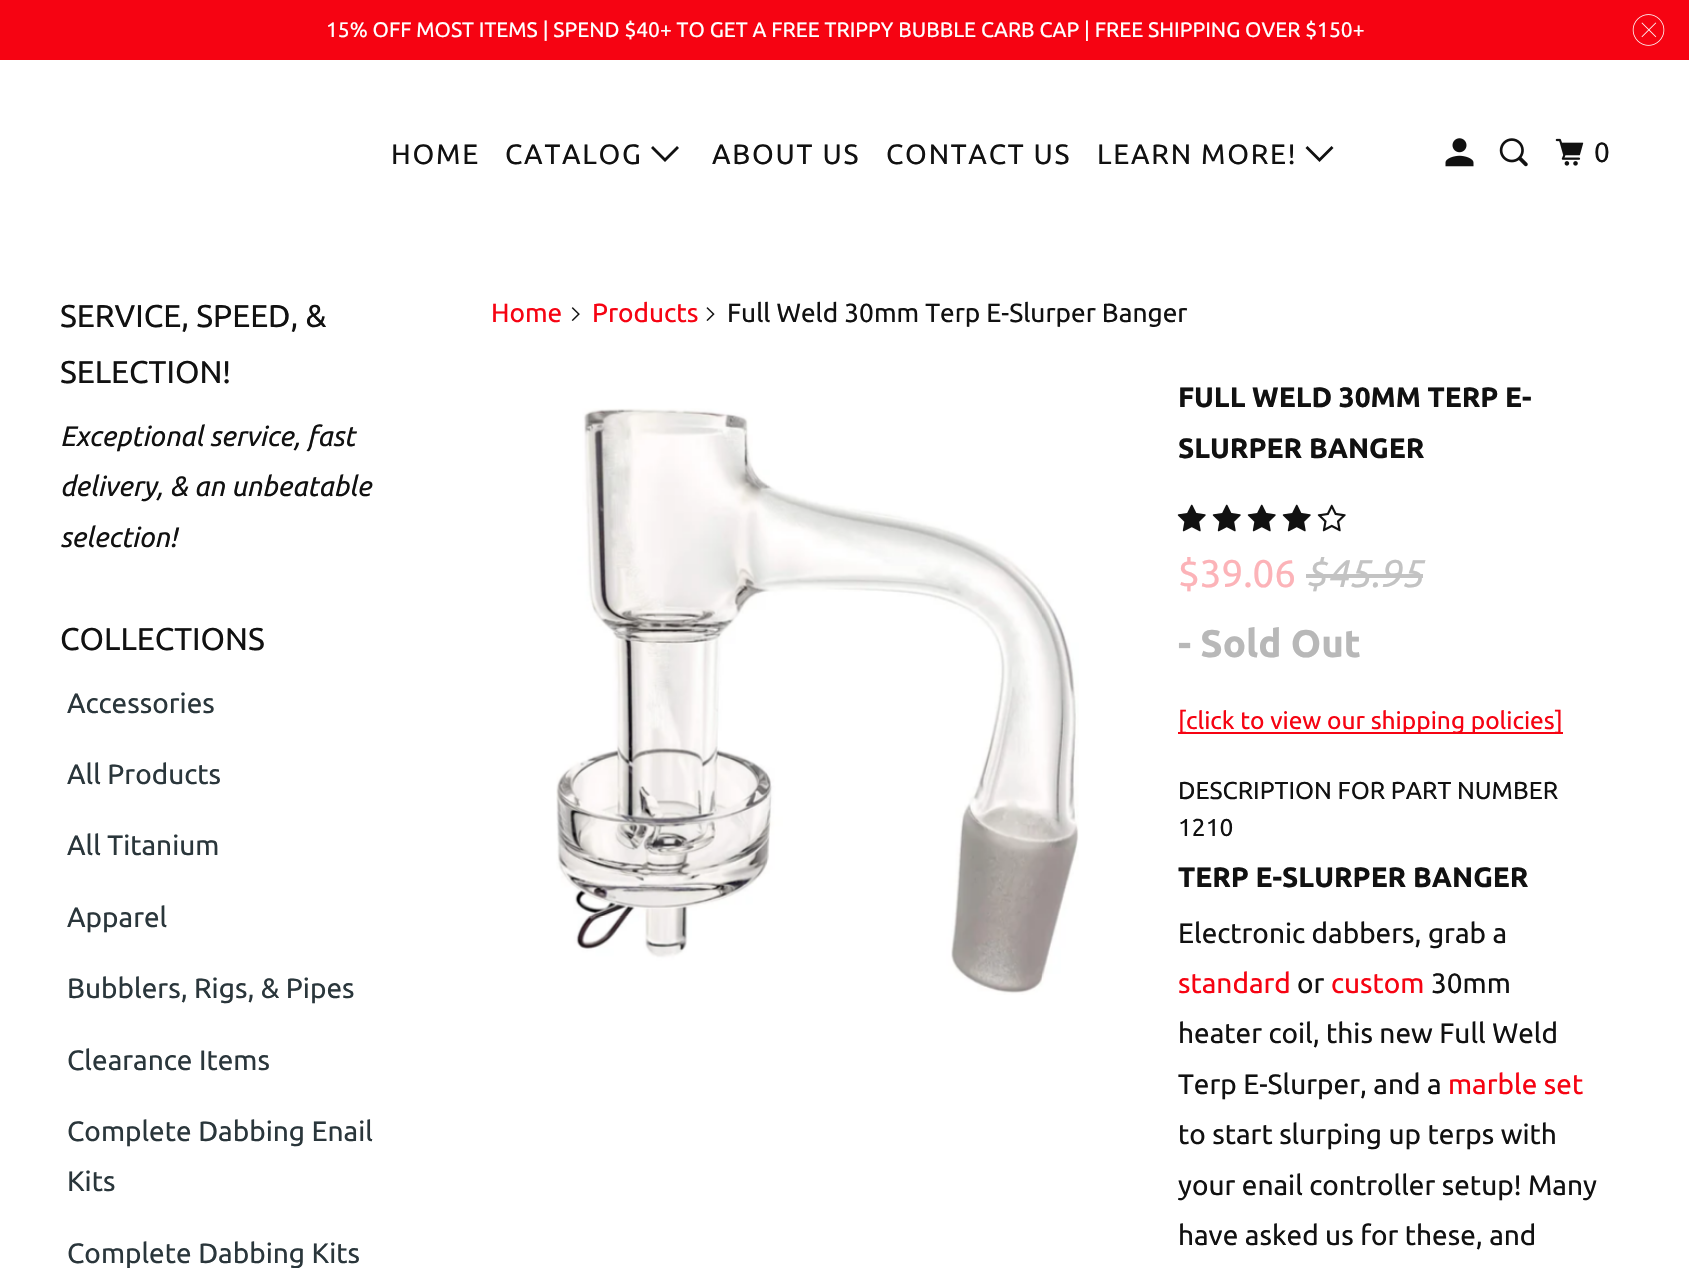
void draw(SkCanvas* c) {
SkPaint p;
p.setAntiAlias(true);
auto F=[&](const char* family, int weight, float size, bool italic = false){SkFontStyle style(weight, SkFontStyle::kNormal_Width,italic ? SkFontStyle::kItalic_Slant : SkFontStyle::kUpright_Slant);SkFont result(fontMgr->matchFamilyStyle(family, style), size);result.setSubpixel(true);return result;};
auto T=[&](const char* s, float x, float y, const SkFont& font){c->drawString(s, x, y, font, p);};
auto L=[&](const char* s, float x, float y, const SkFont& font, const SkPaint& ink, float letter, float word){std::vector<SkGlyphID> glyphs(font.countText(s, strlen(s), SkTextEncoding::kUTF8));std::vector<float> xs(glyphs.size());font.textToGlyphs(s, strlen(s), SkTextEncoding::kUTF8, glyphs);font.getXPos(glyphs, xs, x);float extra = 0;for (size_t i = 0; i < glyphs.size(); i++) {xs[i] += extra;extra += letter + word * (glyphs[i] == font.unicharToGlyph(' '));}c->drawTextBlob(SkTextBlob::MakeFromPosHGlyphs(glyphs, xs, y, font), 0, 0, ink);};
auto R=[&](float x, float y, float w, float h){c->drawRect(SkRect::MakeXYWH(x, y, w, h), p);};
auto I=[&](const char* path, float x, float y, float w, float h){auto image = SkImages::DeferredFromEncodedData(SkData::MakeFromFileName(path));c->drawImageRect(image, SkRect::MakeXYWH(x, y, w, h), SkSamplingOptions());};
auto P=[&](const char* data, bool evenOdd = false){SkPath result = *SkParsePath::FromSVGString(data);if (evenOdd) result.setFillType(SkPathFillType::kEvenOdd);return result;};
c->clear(0xffffffff);
p.setColor(0xfff60312);
R(0,0,1689,60);
auto f1 = F("Ubuntu",400,21);
p.setColor(0xffffffff);
T("15% OFF MOST ITEMS | SPEND $40+ TO GET A FREE TRIPPY BUBBLE CARB CAP | FREE SHIPPING OVER $150+",326,37,f1);
I("1.png",1632,14,33,32);
auto f2 = F("Ubuntu",400,28);
p.setColor(0xff111111);
L("HOME",391,164,f2,p,1.75,0);
L("CATALOG",505,164,f2,p,1.75,0);
c->drawPath(P("M658 155l-7-7l2-2l12 12l12-12l2 2l-14 14z"),p);
L("ABOUT US",712,164,f2,p,1.75,0);
L("CONTACT US",886,164,f2,p,1.75,0);
L("LEARN MORE!",1097,164,f2,p,1.75,0);
c->drawPath(P("M1312.5 155l-7-7l2-2l12 12l12-12l2 2l-14 14z"),p);
I("2.png",1445,138,29,29);
I("3.png",1499,138,29,29);
I("4.png",1555,138,29,28);
L("0",1594,162,f2,p,1.75,0);
auto f3 = F("Ubuntu",400,31.5);
T("SERVICE, SPEED, &",60,327,f3);
T("SELECTION!",60,383,f3);
auto f4 = F("Ubuntu",400,28,true);
T("Exceptional service, fast",60,446,f4);
T("delivery, & an unbeatable",60,496,f4);
T("selection!",60,547,f4);
T("COLLECTIONS",60,650,f3);
p.setColor(0xff2a363b);
T("Accessories",67,713,f2);
T("All Products",67,784,f2);
T("All Titanium",67,855,f2);
T("Apparel",67,927,f2);
T("Bubblers, Rigs, & Pipes",67,998,f2);
T("Clearance Items",67,1070,f2);
T("Complete Dabbing Enail",67,1141,f2);
T("Kits",67,1191,f2);
T("Complete Dabbing Kits",67,1263,f2);
auto f5 = F("Ubuntu",400,26.25);
p.setColor(0xfff60312);
T("Home",491,322,f5);
I("5.png",571,307,9,14);
T("Products",592,322,f5);
I("6.png",706,307,9,14);
p.setColor(0xff111111);
T("Full Weld 30mm Terp E-Slurper Banger",727,322,f5);
I("7.png",556,408,523,587);
auto f6 = F("Ubuntu",700,28);
T("FULL WELD 30MM TERP E-",1178,407,f6);
T("SLURPER BANGER",1178,458,f6);
I("8.png",1177,504,29,28);
I("8.png",1212,504,29,28);
I("8.png",1247,504,29,28);
I("8.png",1282,504,29,28);
I("9.png",1317,504,29,28);
auto f7 = F("Ubuntu",400,38.5);
p.setColor(0xfffcb3b8);
T("$39.06",1178,587,f7);
auto f8 = F("Ubuntu",400,38.5,true);
p.setColor(0xffc3c3c3);
T("$45.95",1305,587,f8);
R(1306,574,117,4);
auto f9 = F("Ubuntu",700,38.5);
p.setColor(0xffb8b8b8);
T("- Sold Out",1178,657,f9);
p.setColor(0xfff60312);
R(1178,732,385,2);
auto f10 = F("Ubuntu",400,24.5);
T("[click to view our shipping policies]",1178,729,f10);
p.setColor(0xff111111);
T("DESCRIPTION FOR PART NUMBER",1178,799,f10);
T("1210",1178,836,f10);
T("TERP E-SLURPER BANGER",1178,887,f6);
T("Electronic dabbers, grab a",1178,943,f2);
p.setColor(0xfff60312);
T("standard",1178,993,f2);
p.setColor(0xff111111);
T("or",1297,993,f2);
p.setColor(0xfff60312);
T("custom",1331,993,f2);
p.setColor(0xff111111);
T("30mm",1431,993,f2);
T("heater coil, this new Full Weld",1178,1043,f2);
T("Terp E-Slurper, and a",1178,1094,f2);
p.setColor(0xfff60312);
T("marble set",1448,1094,f2);
p.setColor(0xff111111);
T("to start slurping up terps with",1178,1144,f2);
T("your enail controller setup! Many",1178,1195,f2);
T("have asked us for these, and",1178,1245,f2);
}
